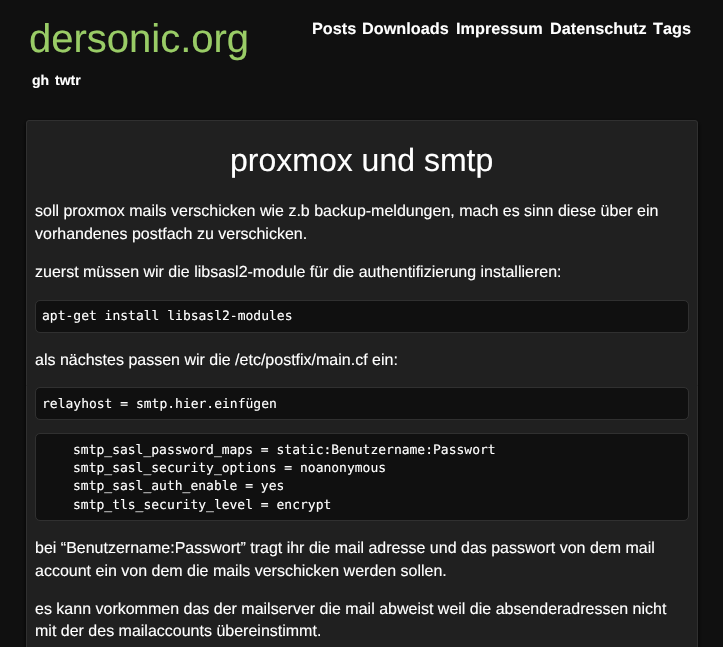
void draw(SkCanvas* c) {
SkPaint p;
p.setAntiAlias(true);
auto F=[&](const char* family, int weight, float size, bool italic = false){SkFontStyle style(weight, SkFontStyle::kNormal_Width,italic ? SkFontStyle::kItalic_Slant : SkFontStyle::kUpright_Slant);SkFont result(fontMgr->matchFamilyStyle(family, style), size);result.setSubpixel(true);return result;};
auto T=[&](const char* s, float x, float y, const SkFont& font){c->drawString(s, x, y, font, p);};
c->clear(0xff101010);
auto f1 = F("Liberation Sans",400,40);
p.setColor(0xff99cc66);
T("dersonic.org",29,52,f1);
auto f2 = F("Liberation Sans",700,16.25);
p.setColor(0xffffffff);
T("Posts",312,34,f2);
T("Downloads",362,34,f2);
T("Impressum",456,34,f2);
T("Datenschutz",550,34,f2);
T("Tags",653,34,f2);
auto f3 = F("Liberation Sans",700,14);
T("gh",32,85,f3);
T("twtr",55,85,f3);
p.setColor(0xff000000);
p.setMaskFilter(SkMaskFilter::MakeBlur(kNormal_SkBlurStyle, 2.5));
c->drawRoundRect(SkRect::MakeXYWH(26,122,672,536),3,3,p);
p.setMaskFilter(nullptr);
p.setColor(0xff202020);
c->drawRoundRect(SkRect::MakeXYWH(26.5,120.5,671,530),2.5,2.5,p);
p.setStroke(true);
p.setStrokeWidth(1);
p.setColor(0xff303030);
c->drawRoundRect(SkRect::MakeXYWH(26.5,120.5,671,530),2.5,2.5,p);
auto f4 = F("Liberation Sans",400,32);
p.setStroke(false);
p.setColor(0xffffffff);
T("proxmox und smtp",230,171,f4);
auto f5 = F("Liberation Sans",400,16);
T("soll proxmox mails verschicken wie z.b backup-meldungen, mach es sinn diese über ein",35,216,f5);
T("vorhandenes postfach zu verschicken.",35,239,f5);
T("zuerst müssen wir die libsasl2-module für die authentifizierung installieren:",35,277,f5);
p.setColor(0xff101010);
c->drawRoundRect(SkRect::MakeXYWH(35.5,300.5,653,32),4.5,4.5,p);
p.setStroke(true);
p.setColor(0xff303030);
c->drawRoundRect(SkRect::MakeXYWH(35.5,300.5,653,32),4.5,4.5,p);
auto f6 = F("DejaVu Sans Mono",400,13);
p.setStroke(false);
p.setColor(0xffffffff);
T("apt-get install libsasl2-modules",42,320,f6);
T("als nächstes passen wir die /etc/postfix/main.cf ein:",35,365,f5);
p.setColor(0xff101010);
c->drawRoundRect(SkRect::MakeXYWH(35.5,387.5,653,32),4.5,4.5,p);
p.setStroke(true);
p.setColor(0xff303030);
c->drawRoundRect(SkRect::MakeXYWH(35.5,387.5,653,32),4.5,4.5,p);
p.setStroke(false);
p.setColor(0xffffffff);
T("relayhost = smtp.hier.einfügen",42,408,f6);
p.setColor(0xff101010);
c->drawRoundRect(SkRect::MakeXYWH(35.5,433.5,653,87),4.5,4.5,p);
p.setStroke(true);
p.setColor(0xff303030);
c->drawRoundRect(SkRect::MakeXYWH(35.5,433.5,653,87),4.5,4.5,p);
p.setStroke(false);
p.setColor(0xffffffff);
T("smtp_sasl_password_maps = static:Benutzername:Passwort",73,454,f6);
T("smtp_sasl_security_options = noanonymous",73,472,f6);
T("smtp_sasl_auth_enable = yes",73,490,f6);
T("smtp_tls_security_level = encrypt",73,509,f6);
T("bei “Benutzername:Passwort” tragt ihr die mail adresse und das passwort von dem mail",35,553,f5);
T("account ein von dem die mails verschicken werden sollen.",35,576,f5);
T("es kann vorkommen das der mailserver die mail abweist weil die absenderadressen nicht",35,614,f5);
T("mit der des mailaccounts übereinstimmt.",35,636,f5);
}
